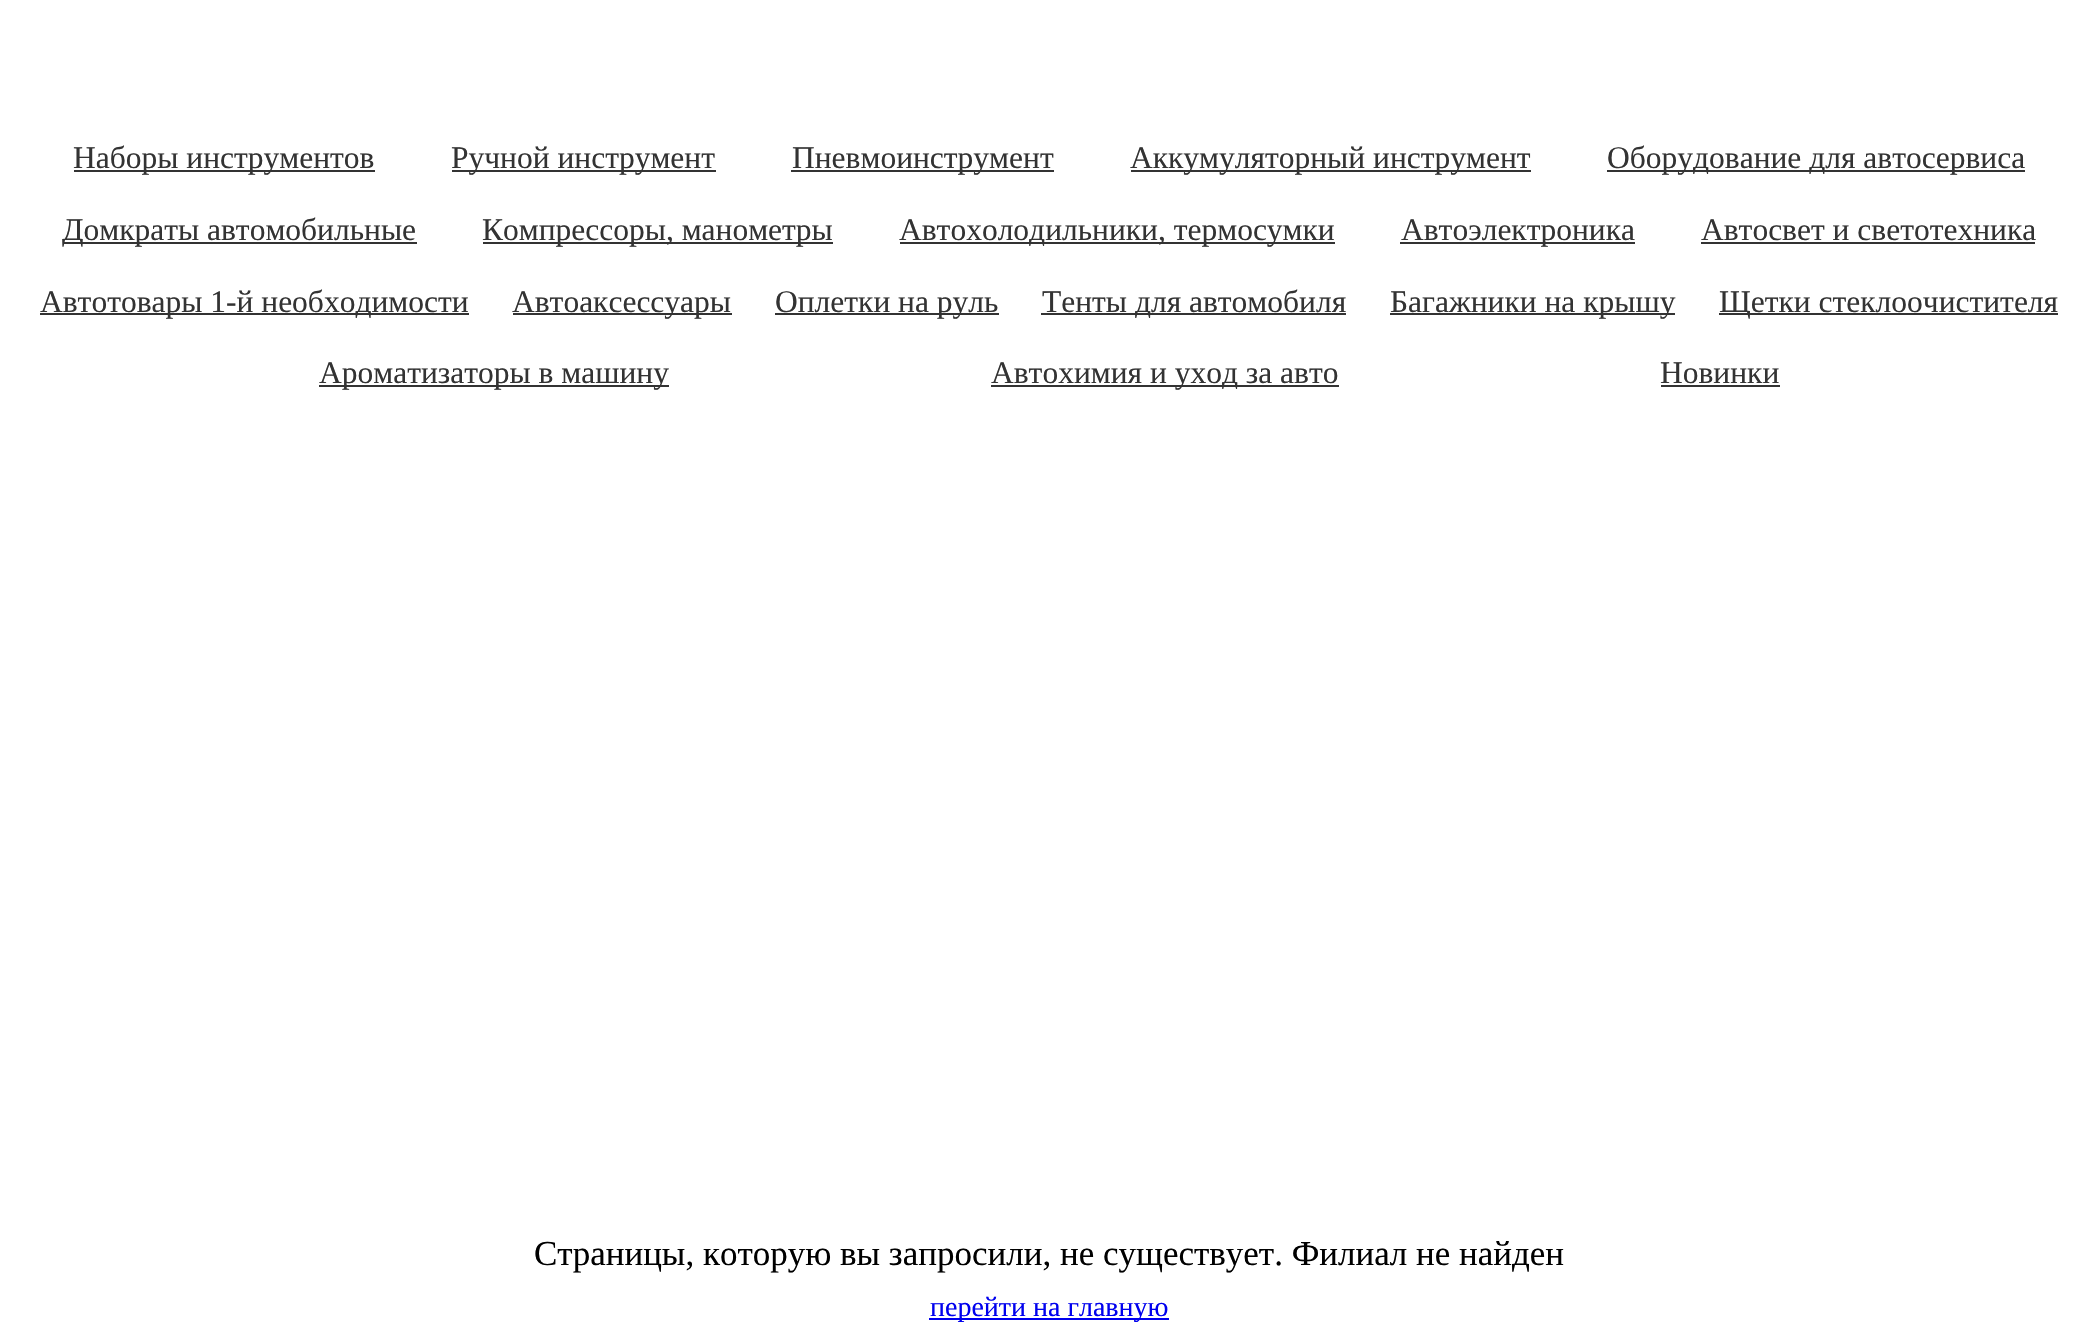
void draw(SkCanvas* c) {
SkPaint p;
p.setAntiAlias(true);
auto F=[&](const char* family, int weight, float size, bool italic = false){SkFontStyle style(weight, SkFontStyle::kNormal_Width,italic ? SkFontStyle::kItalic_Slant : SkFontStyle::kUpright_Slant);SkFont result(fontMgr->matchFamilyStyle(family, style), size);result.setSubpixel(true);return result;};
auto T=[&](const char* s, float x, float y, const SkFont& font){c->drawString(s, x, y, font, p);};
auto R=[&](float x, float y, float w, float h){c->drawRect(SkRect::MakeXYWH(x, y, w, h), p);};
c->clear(0xffffffff);
p.setColor(0xff333333);
R(74,170,301,2);
auto f1 = F("Liberation Serif",400,31.5);
T("Наборы инструментов",73,168,f1);
R(452,170,264,2);
T("Ручной инструмент",451,168,f1);
R(791,170,263,2);
T("Пневмоинструмент",792,168,f1);
R(1131,170,400,2);
T("Аккумуляторный инструмент",1130,168,f1);
R(1607,170,418,2);
T("Оборудование для автосервиса",1607,168,f1);
R(63,242,354,2);
T("Домкраты автомобильные",62,240,f1);
R(483,242,350,2);
T("Компрессоры, манометры",482,240,f1);
R(900,242,435,2);
T("Автохолодильники, термосумки",899,240,f1);
R(1400,242,235,2);
T("Автоэлектроника",1401,240,f1);
T("Автосвет и светотехника",1701,240,f1);
R(1701,242,334,2);
R(40,313,429,2);
T("Автотовары 1-й необходимости",40,312,f1);
R(513,313,219,2);
T("Автоаксессуары",512,312,f1);
R(775,313,224,2);
T("Оплетки на руль",775,312,f1);
R(1041,313,305,2);
T("Тенты для автомобиля",1042,312,f1);
R(1390,313,285,2);
T("Багажники на крышу",1390,312,f1);
R(1719,313,339,2);
T("Щетки стеклоочистителя",1719,312,f1);
R(319,385,350,2);
T("Ароматизаторы в машину",319,383,f1);
R(991,385,348,2);
T("Автохимия и уход за авто",991,383,f1);
T("Новинки",1660,383,f1);
R(1661,385,119,2);
auto f2 = F("Liberation Serif",400,35);
p.setColor(0xff000000);
T("Страницы, которую вы запросили, не существует. Филиал не найден",534,1265,f2);
p.setColor(0xff0000ee);
R(929,1318,240,2);
auto f3 = F("Liberation Serif",400,28);
T("перейти на главную",930,1316,f3);
}
